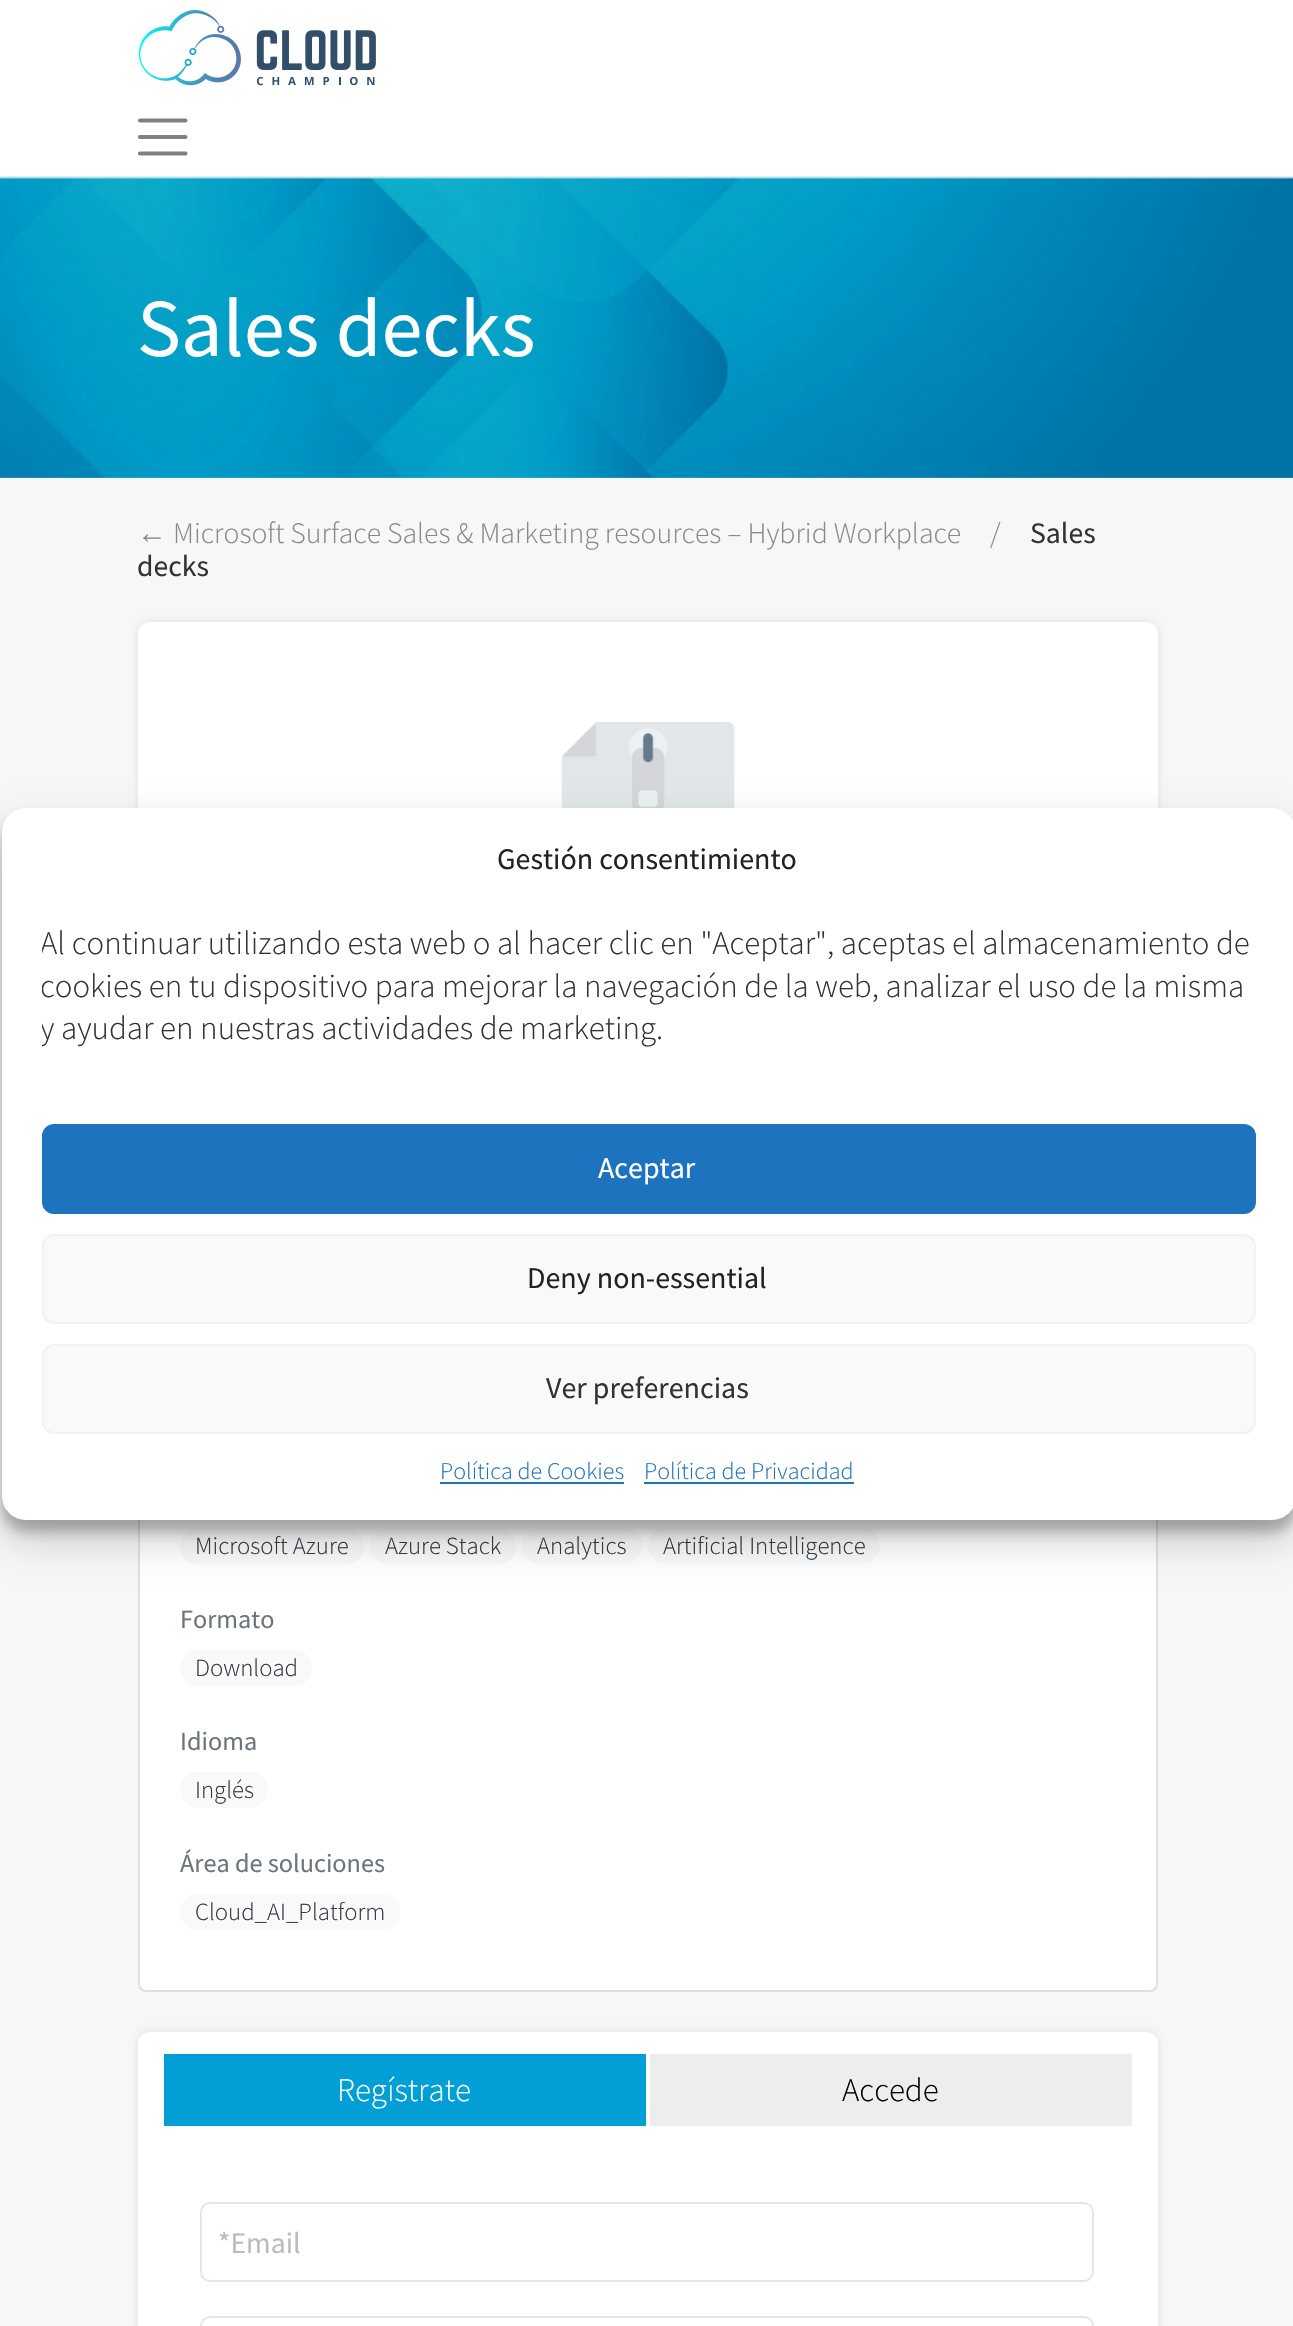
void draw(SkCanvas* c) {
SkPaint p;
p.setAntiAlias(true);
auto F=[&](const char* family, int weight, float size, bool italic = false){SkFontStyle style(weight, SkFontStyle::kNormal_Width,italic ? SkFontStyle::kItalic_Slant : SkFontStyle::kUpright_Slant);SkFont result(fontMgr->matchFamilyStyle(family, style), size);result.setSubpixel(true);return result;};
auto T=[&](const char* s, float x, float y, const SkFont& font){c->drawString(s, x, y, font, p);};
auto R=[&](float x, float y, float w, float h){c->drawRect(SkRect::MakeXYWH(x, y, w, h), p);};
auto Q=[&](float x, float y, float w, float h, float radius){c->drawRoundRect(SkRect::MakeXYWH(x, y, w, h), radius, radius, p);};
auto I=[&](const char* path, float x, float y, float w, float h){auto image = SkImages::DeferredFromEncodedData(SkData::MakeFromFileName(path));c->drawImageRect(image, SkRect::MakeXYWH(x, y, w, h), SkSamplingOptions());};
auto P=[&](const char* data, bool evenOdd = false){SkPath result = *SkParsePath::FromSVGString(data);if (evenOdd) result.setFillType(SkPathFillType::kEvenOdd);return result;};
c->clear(0xffffffff);
p.setColor(0xffededed);
R(0,176,1293,2);
I("1.png",138,10,238,76);
p.setStroke(true);
p.setStrokeWidth(4.1);
p.setStrokeCap(SkPaint::kRound_Cap);
p.setColor(0xff808080);
c->drawPath(P("M140 120.5h45.5m-45.5 16.5h45.5m-45.5 16.5h45.5"),p);
I("2.png",0,177,1293,301);
auto f1 = F("Source Sans Pro",400,82.5);
p.setStroke(false);
p.setColor(0xffffffff);
T("Sales decks",137,356,f1);
p.setColor(0xfff7f7f7);
R(0,478,1293,1848);
auto f2 = F("Liberation Sans",400,29.7);
p.setColor(0xff898989);
T("←",137,543,f2);
auto f3 = F("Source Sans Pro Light",300,29.7);
T("Microsoft Surface Sales & Marketing resources – Hybrid Workplace",173,543,f3);
T("/",990,543,f3);
auto f4 = F("Source Sans Pro",400,29.7);
p.setColor(0xff333333);
T("Sales",1030,543,f4);
T("decks",137,576,f4);
c->save();
c->clipPath(P("M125 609h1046v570h-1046zm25 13h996c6.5 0 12 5.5 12 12v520c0 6.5-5.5 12-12 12h-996c-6.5 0-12-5.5-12-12v-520c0-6.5 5.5-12 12-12z",true),true);
p.setColor(0xffdfdfdf);
p.setMaskFilter(SkMaskFilter::MakeBlur(kNormal_SkBlurStyle, 4));
c->drawRoundRect(SkRect::MakeXYWH(138,622,1020,544),12,12,p);
p.setMaskFilter(nullptr);
c->restore();
p.setColor(0xe6ffffff);
Q(138,622,1020,544,12);
I("3.png",561,722,174,86);
p.setColor(0xffffffff);
Q(138,1206,1020,786,8);
p.setStroke(true);
p.setStrokeWidth(2);
p.setStrokeCap(SkPaint::kButt_Cap);
p.setColor(0x1f000000);
c->drawRoundRect(SkRect::MakeXYWH(139,1207,1018,784),7,7,p);
p.setStroke(false);
p.setColor(0xfff8f9fa);
Q(180,1528,184,36,18);
auto f5 = F("Source Sans Pro Light",300,24.75);
p.setColor(0xff343a40);
T("Microsoft Azure",195,1554,f5);
p.setColor(0xfff8f9fa);
Q(370,1528,146,36,18);
p.setColor(0xff343a40);
T("Azure Stack",385,1554,f5);
p.setColor(0xfff8f9fa);
Q(522,1528,120,36,18);
p.setColor(0xff343a40);
T("Analytics",537,1554,f5);
p.setColor(0xfff8f9fa);
Q(648,1528,232,36,18);
p.setColor(0xff343a40);
T("Artificial Intelligence",663,1554,f5);
auto f6 = F("Source Sans Pro",400,26.25);
p.setColor(0xff6c757d);
T("Formato",180,1628,f6);
p.setColor(0xfff8f9fa);
Q(180,1650,132,36,18);
p.setColor(0xff343a40);
T("Download",195,1676,f5);
p.setColor(0xff6c757d);
T("Idioma",180,1750,f6);
p.setColor(0xfff8f9fa);
Q(180,1772,88,36,18);
p.setColor(0xff343a40);
T("Inglés",195,1798,f5);
p.setColor(0xff6c757d);
T("Área de soluciones",180,1872,f6);
p.setColor(0xfff8f9fa);
Q(180,1894,220,36,18);
p.setColor(0xff343a40);
T("Cloud_AI_Platform",195,1920,f5);
c->save();
c->clipPath(P("M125 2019h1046v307h-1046zm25 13h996c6.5 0 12 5.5 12 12v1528c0 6.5-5.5 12-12 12h-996c-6.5 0-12-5.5-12-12v-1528c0-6.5 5.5-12 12-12z",true),true);
p.setColor(0xffdfdfdf);
p.setMaskFilter(SkMaskFilter::MakeBlur(kNormal_SkBlurStyle, 4));
c->drawRoundRect(SkRect::MakeXYWH(138,2032,1020,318),12,12,p);
p.setMaskFilter(nullptr);
c->restore();
p.setColor(0xe6ffffff);
Q(138,2032,1020,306,12);
p.setColor(0xff029fd7);
R(164,2054,482,72);
auto f7 = F("Source Sans Pro Light",300,32.95);
p.setColor(0xffffffff);
T("Regístrate",337,2101,f7);
p.setColor(0xffededed);
R(650,2054,482,72);
p.setColor(0xff000000);
T("Accede",842,2101,f7);
p.setStroke(true);
p.setColor(0xffe6e6e6);
c->drawRoundRect(SkRect::MakeXYWH(201,2203,892,78),9,9,p);
p.setStroke(false);
p.setColor(0xffbbbbbb);
T("*Email",218,2253,f4);
p.setStroke(true);
p.setColor(0xffe6e6e6);
c->drawRoundRect(SkRect::MakeXYWH(201,2317,892,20),9,9,p);
p.setStroke(false);
p.setColor(0x3b000000);
p.setMaskFilter(SkMaskFilter::MakeBlur(kNormal_SkBlurStyle, 6));
c->drawRoundRect(SkRect::MakeXYWH(2,820,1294,712),24,24,p);
p.setMaskFilter(nullptr);
p.setColor(0x30000000);
p.setMaskFilter(SkMaskFilter::MakeBlur(kNormal_SkBlurStyle, 20));
c->drawRoundRect(SkRect::MakeXYWH(2,828,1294,712),24,24,p);
p.setMaskFilter(nullptr);
p.setColor(0xffffffff);
Q(2,808,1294,712,24);
auto f8 = F("Source Sans Pro",400,30);
p.setColor(0xff222222);
T("Gestión consentimiento",497,869,f8);
c->save();
c->clipRect(SkRect::MakeXYWH(42,922,1214,162));
p.setColor(0xff333333);
T("Al continuar utilizando esta web o al hacer clic en \"Aceptar\", aceptas el almacenamiento de",40,954,f7);
T("cookies en tu dispositivo para mejorar la navegación de la web, analizar el uso de la misma",40,997,f7);
T("y ayudar en nuestras actividades de marketing.",40,1039,f7);
c->restore();
p.setColor(0xff1e73be);
c->drawRoundRect(SkRect::MakeXYWH(43,1125,1212,88),11,11,p);
p.setStroke(true);
c->drawRoundRect(SkRect::MakeXYWH(43,1125,1212,88),11,11,p);
p.setStroke(false);
p.setColor(0xffffffff);
T("Aceptar",598,1178,f8);
p.setColor(0xfff9f9f9);
c->drawRoundRect(SkRect::MakeXYWH(43,1235,1212,88),11,11,p);
p.setStroke(true);
p.setColor(0xfff2f2f2);
c->drawRoundRect(SkRect::MakeXYWH(43,1235,1212,88),11,11,p);
p.setStroke(false);
p.setColor(0xff222222);
T("Deny non-essential",527,1288,f8);
p.setColor(0xfff9f9f9);
c->drawRoundRect(SkRect::MakeXYWH(43,1345,1212,88),11,11,p);
p.setStroke(true);
p.setColor(0xfff2f2f2);
c->drawRoundRect(SkRect::MakeXYWH(43,1345,1212,88),11,11,p);
p.setStroke(false);
p.setColor(0xff333333);
T("Ver preferencias",546,1398,f8);
auto f9 = F("Source Sans Pro Light",300,24);
p.setColor(0xff1e73be);
T("Política de Cookies",440,1479,f9);
R(440,1482,184,2);
T("Política de Privacidad",644,1479,f9);
R(644,1482,210,2);
}
